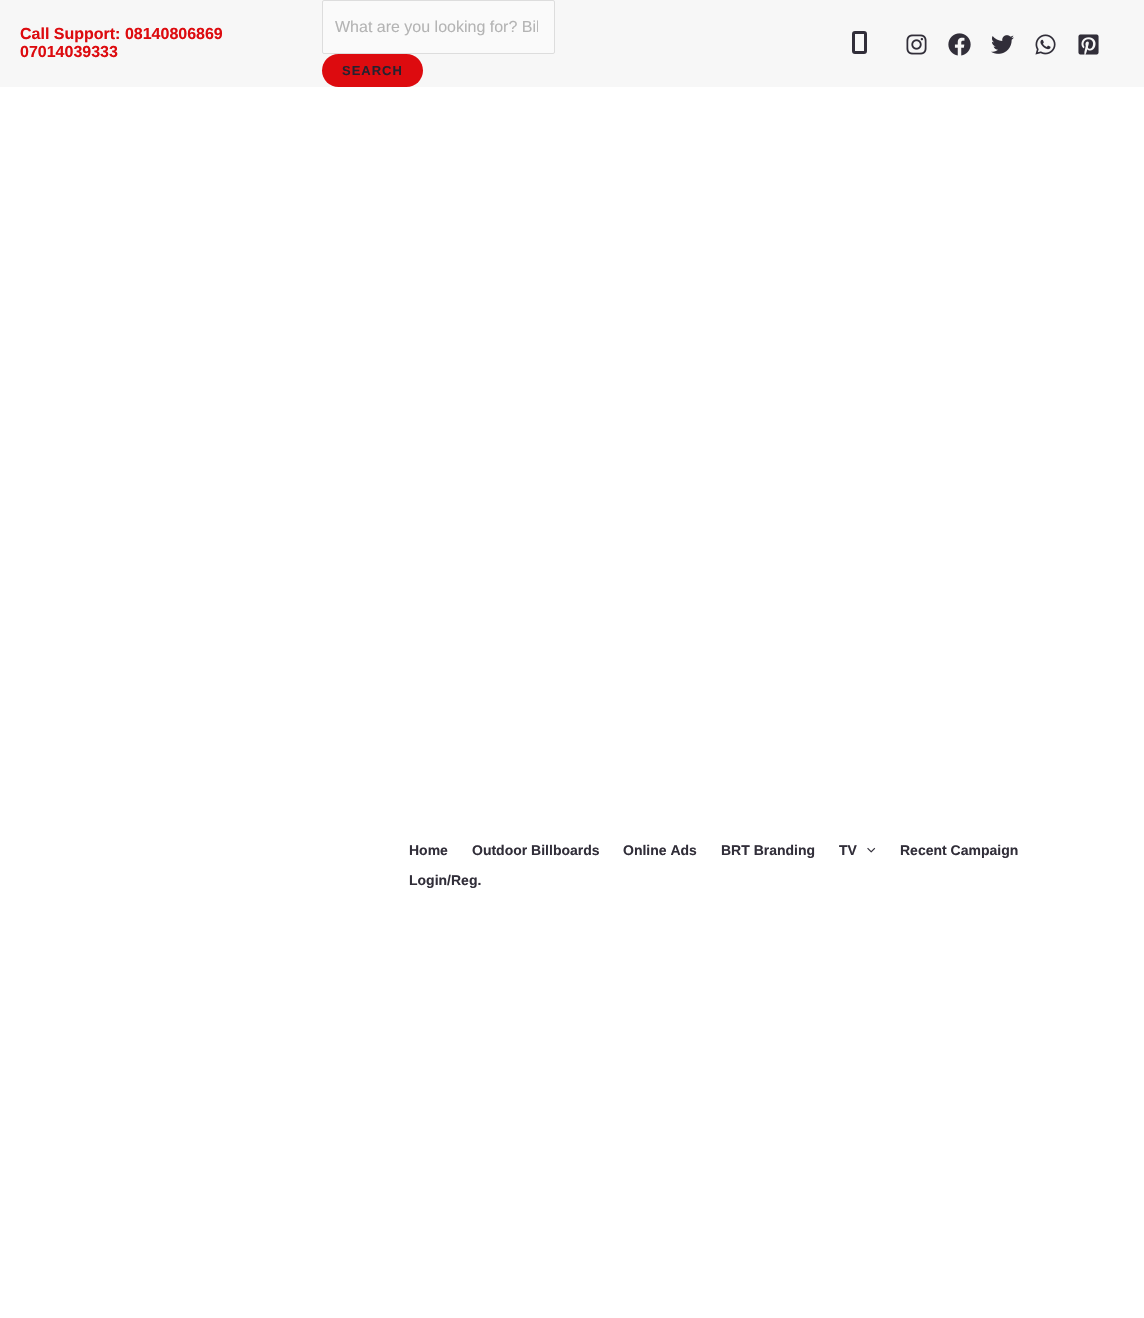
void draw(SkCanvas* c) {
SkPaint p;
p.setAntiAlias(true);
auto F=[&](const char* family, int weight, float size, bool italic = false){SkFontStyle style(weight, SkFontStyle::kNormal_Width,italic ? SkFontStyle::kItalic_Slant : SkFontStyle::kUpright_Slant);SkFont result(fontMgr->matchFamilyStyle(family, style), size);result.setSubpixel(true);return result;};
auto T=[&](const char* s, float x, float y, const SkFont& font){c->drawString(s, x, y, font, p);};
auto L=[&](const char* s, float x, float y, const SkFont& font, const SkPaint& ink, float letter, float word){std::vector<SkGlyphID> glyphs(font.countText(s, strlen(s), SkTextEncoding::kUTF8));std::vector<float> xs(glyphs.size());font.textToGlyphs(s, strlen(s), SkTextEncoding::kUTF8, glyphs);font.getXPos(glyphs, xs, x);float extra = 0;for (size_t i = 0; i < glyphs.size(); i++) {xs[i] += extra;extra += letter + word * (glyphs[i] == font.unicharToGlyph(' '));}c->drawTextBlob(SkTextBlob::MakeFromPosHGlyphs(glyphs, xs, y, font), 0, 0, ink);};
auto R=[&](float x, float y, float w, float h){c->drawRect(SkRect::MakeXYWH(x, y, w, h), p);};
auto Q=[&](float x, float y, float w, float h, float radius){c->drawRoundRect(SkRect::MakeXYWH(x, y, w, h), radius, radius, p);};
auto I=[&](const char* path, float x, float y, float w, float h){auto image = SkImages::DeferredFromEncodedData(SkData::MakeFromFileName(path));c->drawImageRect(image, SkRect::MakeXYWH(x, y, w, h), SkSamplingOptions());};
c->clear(0xfff7f7f7);
auto f1 = F("Liberation Sans",700,16);
p.setColor(0xffdd0b0f);
T("Call Support: 08140806869",20,39,f1);
T("07014039333",20,57,f1);
p.setColor(0xfffafafa);
c->drawRoundRect(SkRect::MakeXYWH(322.5,.5,232,53),1.5,1.5,p);
p.setStroke(true);
p.setStrokeWidth(1);
p.setColor(0xffdddddd);
c->drawRoundRect(SkRect::MakeXYWH(322.5,.5,232,53),1.5,1.5,p);
c->save();
c->clipRect(SkRect::MakeXYWH(335,18,203,18));
auto f2 = F("Liberation Sans",400,16);
p.setStroke(false);
p.setColor(0xffb4b4b4);
T("What are you looking for? Bil",335,32,f2);
c->restore();
p.setColor(0xffdd0b0f);
Q(322,54,101,33,16.5);
auto f3 = F("Liberation Sans",700,13);
p.setColor(0xff26222f);
L("SEARCH",342,75,f3,p,1,0);
p.setStroke(true);
p.setStrokeWidth(3);
p.setColor(0xff312e39);
c->drawRoundRect(SkRect::MakeXYWH(853.5,32.5,12,20),1.5,1.5,p);
I("1.png",906,34,21,21);
I("2.png",948,33,23,23);
I("3.png",991,35,23,19);
I("4.png",1035,34,21,21);
I("5.png",1078,34,21,21);
p.setStroke(false);
p.setColor(0xffffffff);
R(0,87,1144,1231);
auto f4 = F("Liberation Sans",700,14);
p.setColor(0xff312e39);
T("Home",409,855,f4);
T("Outdoor Billboards",472,855,f4);
T("Online Ads",623,855,f4);
T("BRT Branding",721,855,f4);
T("TV",839,855,f4);
I("6.png",867,847,9,6);
T("Recent Campaign",900,855,f4);
T("Login/Reg.",409,885,f4);
}
